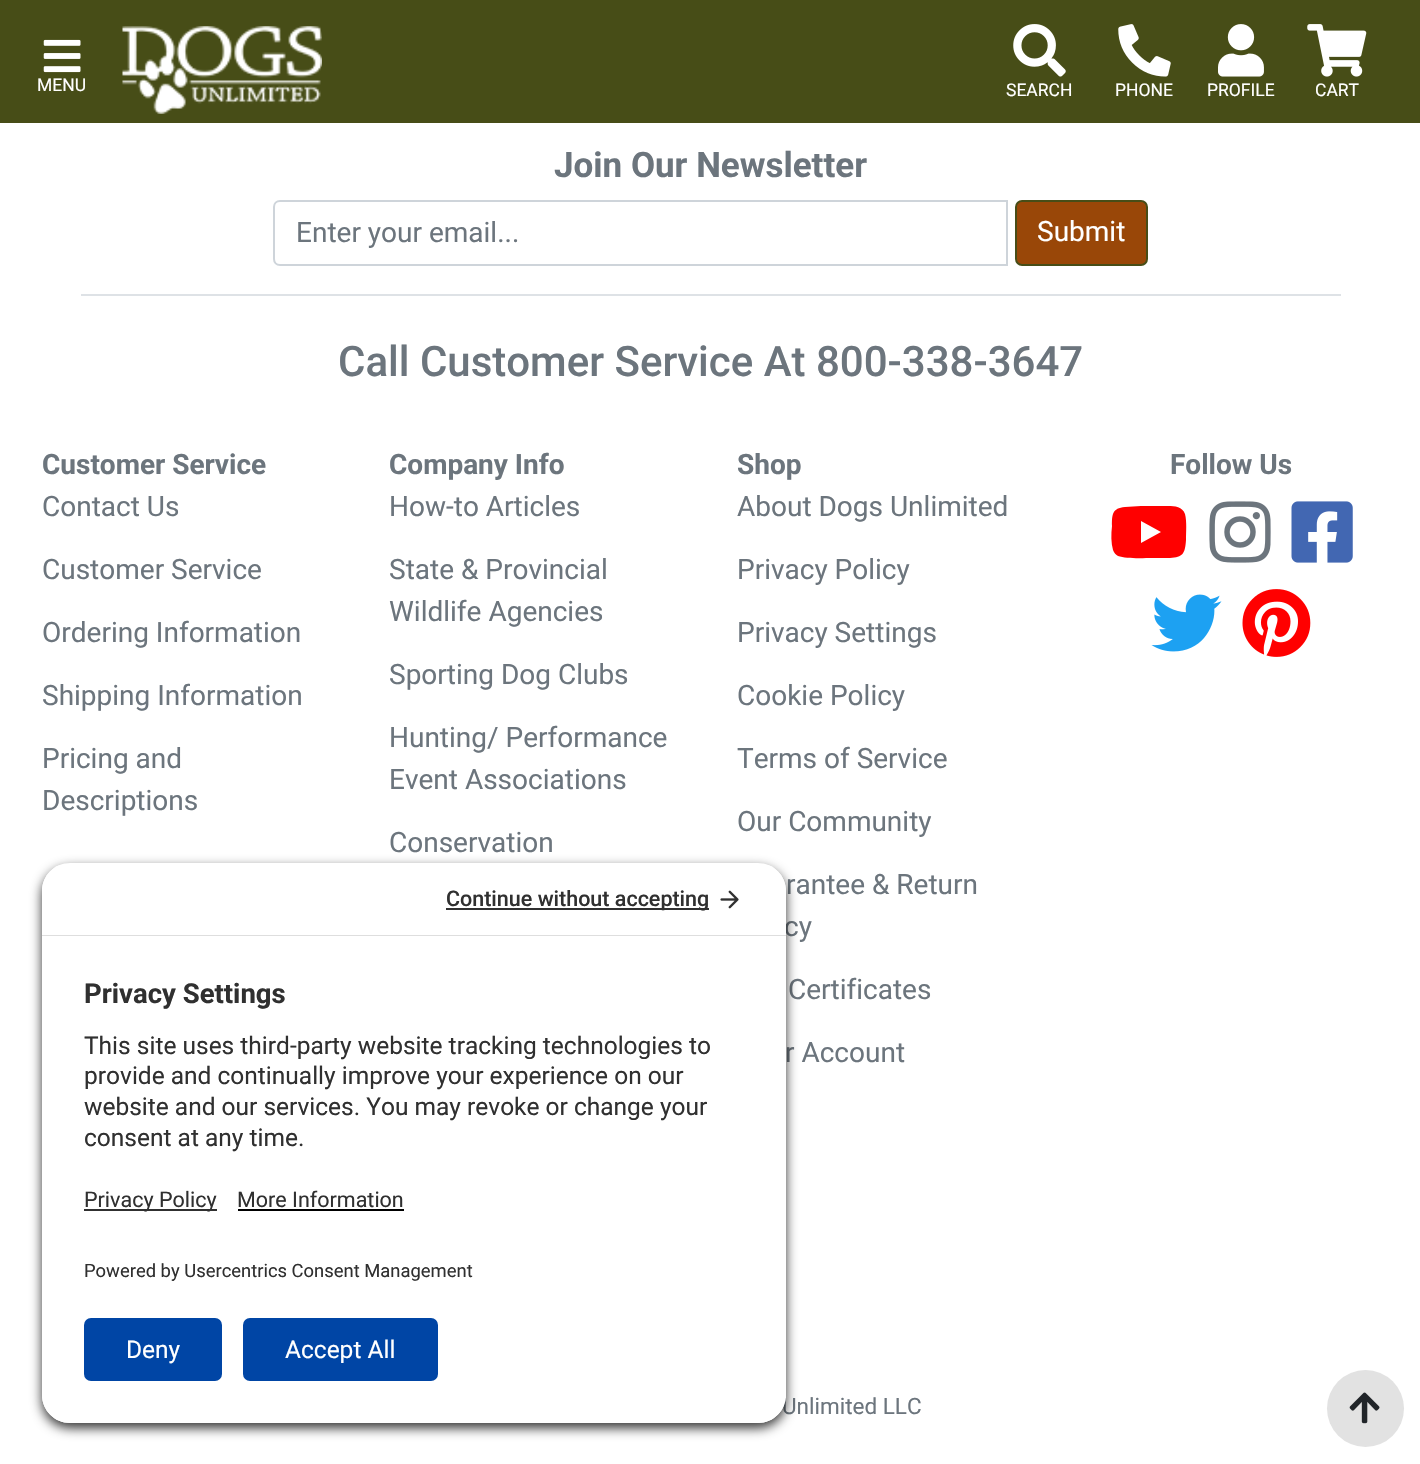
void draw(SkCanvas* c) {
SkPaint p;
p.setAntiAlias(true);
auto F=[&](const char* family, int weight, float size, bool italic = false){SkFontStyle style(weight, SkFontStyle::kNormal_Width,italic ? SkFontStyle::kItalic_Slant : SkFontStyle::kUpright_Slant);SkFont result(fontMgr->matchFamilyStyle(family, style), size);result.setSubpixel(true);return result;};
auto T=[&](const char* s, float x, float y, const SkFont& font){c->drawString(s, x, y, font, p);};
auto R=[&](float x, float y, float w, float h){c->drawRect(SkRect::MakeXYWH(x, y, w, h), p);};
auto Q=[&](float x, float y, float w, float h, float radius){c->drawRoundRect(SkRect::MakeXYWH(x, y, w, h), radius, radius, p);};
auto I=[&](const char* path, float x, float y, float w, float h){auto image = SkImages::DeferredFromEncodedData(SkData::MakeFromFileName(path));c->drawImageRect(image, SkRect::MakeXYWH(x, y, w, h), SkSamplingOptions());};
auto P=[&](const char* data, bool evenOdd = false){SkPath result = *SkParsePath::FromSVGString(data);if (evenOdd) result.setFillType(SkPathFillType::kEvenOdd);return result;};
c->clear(0xffffffff);
p.setColor(0xff474d17);
R(0,0,1420,123);
I("1.png",43,39,38,34);
auto f1 = F("Roboto",400,17.5);
p.setColor(0xffffffff);
T("MENU",37,91,f1);
I("2.png",122,26,200,88);
I("3.png",1013,24,53,53);
T("SEARCH",1006,96,f1);
I("4.png",1118,24,53,53);
T("PHONE",1115,96,f1);
I("5.png",1218,24,46,53);
T("PROFILE",1207,96,f1);
I("6.png",1307,24,60,53);
T("CART",1315,96,f1);
p.setColor(0xffdee2e6);
R(81,294,1260,2);
auto f2 = F("Roboto",700,35);
p.setColor(0xff6c757d);
T("Join Our Newsletter",554,177,f2);
p.setStroke(true);
p.setStrokeWidth(2);
p.setColor(0xffced4da);
c->drawPath(P("M280 201h727v64h-727c-3.5 0-6-2.5-6-6v-52c0-3.5 2.5-6 6-6z"),p);
auto f3 = F("Roboto",400,28);
p.setStroke(false);
p.setColor(0xff6c757d);
T("Enter your email...",296,242,f3);
p.setColor(0xff994708);
c->drawRoundRect(SkRect::MakeXYWH(1016,201,131,64),6,6,p);
p.setStroke(true);
p.setColor(0xff474d17);
c->drawRoundRect(SkRect::MakeXYWH(1016,201,131,64),6,6,p);
p.setStroke(false);
p.setColor(0xffffffff);
T("Submit",1037,241,f3);
auto f4 = F("Roboto",500,42);
p.setColor(0xff6c757d);
T("Call Customer Service At 800-338-3647",338,376,f4);
auto f5 = F("Roboto",700,28);
T("Customer Service",42,474,f5);
T("Contact Us",42,516,f3);
T("Customer Service",42,579,f3);
T("Ordering Information",42,642,f3);
T("Shipping Information",42,705,f3);
T("Pricing and",42,768,f3);
T("Descriptions",42,810,f3);
T("Company Info",389,474,f5);
T("How-to Articles",389,516,f3);
T("State & Provincial",389,579,f3);
T("Wildlife Agencies",389,621,f3);
T("Sporting Dog Clubs",389,684,f3);
T("Hunting/ Performance",389,747,f3);
T("Event Associations",389,789,f3);
T("Conservation",389,852,f3);
T("Shop",737,474,f5);
T("About Dogs Unlimited",737,516,f3);
T("Privacy Policy",737,579,f3);
T("Privacy Settings",737,642,f3);
T("Cookie Policy",737,705,f3);
T("Terms of Service",737,768,f3);
T("Our Community",737,831,f3);
T("rantee & Return",786,894,f3);
T("cy",784,936,f3);
T("Certificates",788,999,f3);
T("r Account",785,1062,f3);
T("Follow Us",1170,474,f5);
p.setColor(0xffff0000);
c->drawPath(P("M1185 514c2 8 1 18 1 26c-1 14-3 17-16 18h-18c-8 0-26 1-34-2c-2-1-4-3-5-6c-2-7-2-16-1-24c0-11 0-18 13-19l16-1h23c7 0 18-1 21 8zm-44 29l20-11l-20-11z"),p);
I("7.png",1209,501,62,62);
I("8.png",1291,501,62,62);
I("9.png",1151,594,71,58);
I("10.png",1242,589,69,68);
auto f6 = F("Roboto",400,22.5);
p.setColor(0xff6c757d);
T("Unlimited LLC",782,1414,f6);
p.setColor(0xffe2e2e2);
c->drawCircle(1365.5,1408.5,38.5,p);
I("11.png",1349,1392,31,32);
c->save();
c->clipPath(P("M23 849h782v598h-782zm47 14h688c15.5 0 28 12.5 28 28v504c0 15.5-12.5 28-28 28h-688c-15.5 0-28-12.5-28-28v-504c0-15.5 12.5-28 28-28z",true),true);
p.setColor(0xcc000000);
p.setMaskFilter(SkMaskFilter::MakeBlur(kNormal_SkBlurStyle, 6));
c->drawRoundRect(SkRect::MakeXYWH(42,868,744,560),28,28,p);
p.setMaskFilter(nullptr);
c->restore();
c->save();
c->clipPath(P("M70 863h688c15.5 0 28 12.5 28 28v269h-744v-269c0-15.5 12.5-28 28-28z"),true);
p.setColor(0xffffffff);
R(42,865,744,70);
c->restore();
p.setColor(0xffdedede);
R(42,935,744,1);
p.setColor(0xff303030);
R(446,908,263,2);
auto f7 = F("Roboto",500,21.5);
T("Continue without accepting",446,906,f7);
I("12.png",720,890,19,19);
p.setColor(0xffffffff);
R(785,936,1,224);
auto f8 = F("Roboto",700,27.5);
p.setColor(0xff303030);
T("Privacy Settings",84,1003,f8);
auto f9 = F("Roboto",400,24.5);
T("This site uses third-party website tracking technologies to",84,1054,f9);
T("provide and continually improve your experience on our",84,1084,f9);
T("website and our services. You may revoke or change your",84,1115,f9);
T("consent at any time.",84,1146,f9);
p.setColor(0xffffffff);
c->drawPath(P("M42 1160h744v235c0 15.5-12.5 28-28 28h-688c-15.5 0-28-12.5-28-28z"),p);
p.setColor(0xff303030);
R(84,1209,133,2);
auto f10 = F("Roboto",400,21.5);
T("Privacy Policy",84,1207,f10);
T("More Information",237,1207,f10);
p.setColor(0xff000000);
R(238,1209,166,2);
auto f11 = F("Roboto",400,18.4);
p.setColor(0xff303030);
T("Powered by Usercentrics Consent Management",84,1277,f11);
p.setColor(0xff0045a5);
Q(84,1318,138,63,7);
p.setColor(0xffffffff);
T("Deny",126,1358,f9);
p.setColor(0xff0045a5);
Q(243,1318,195,63,7);
p.setColor(0xffffffff);
T("Accept All",285,1358,f9);
}
